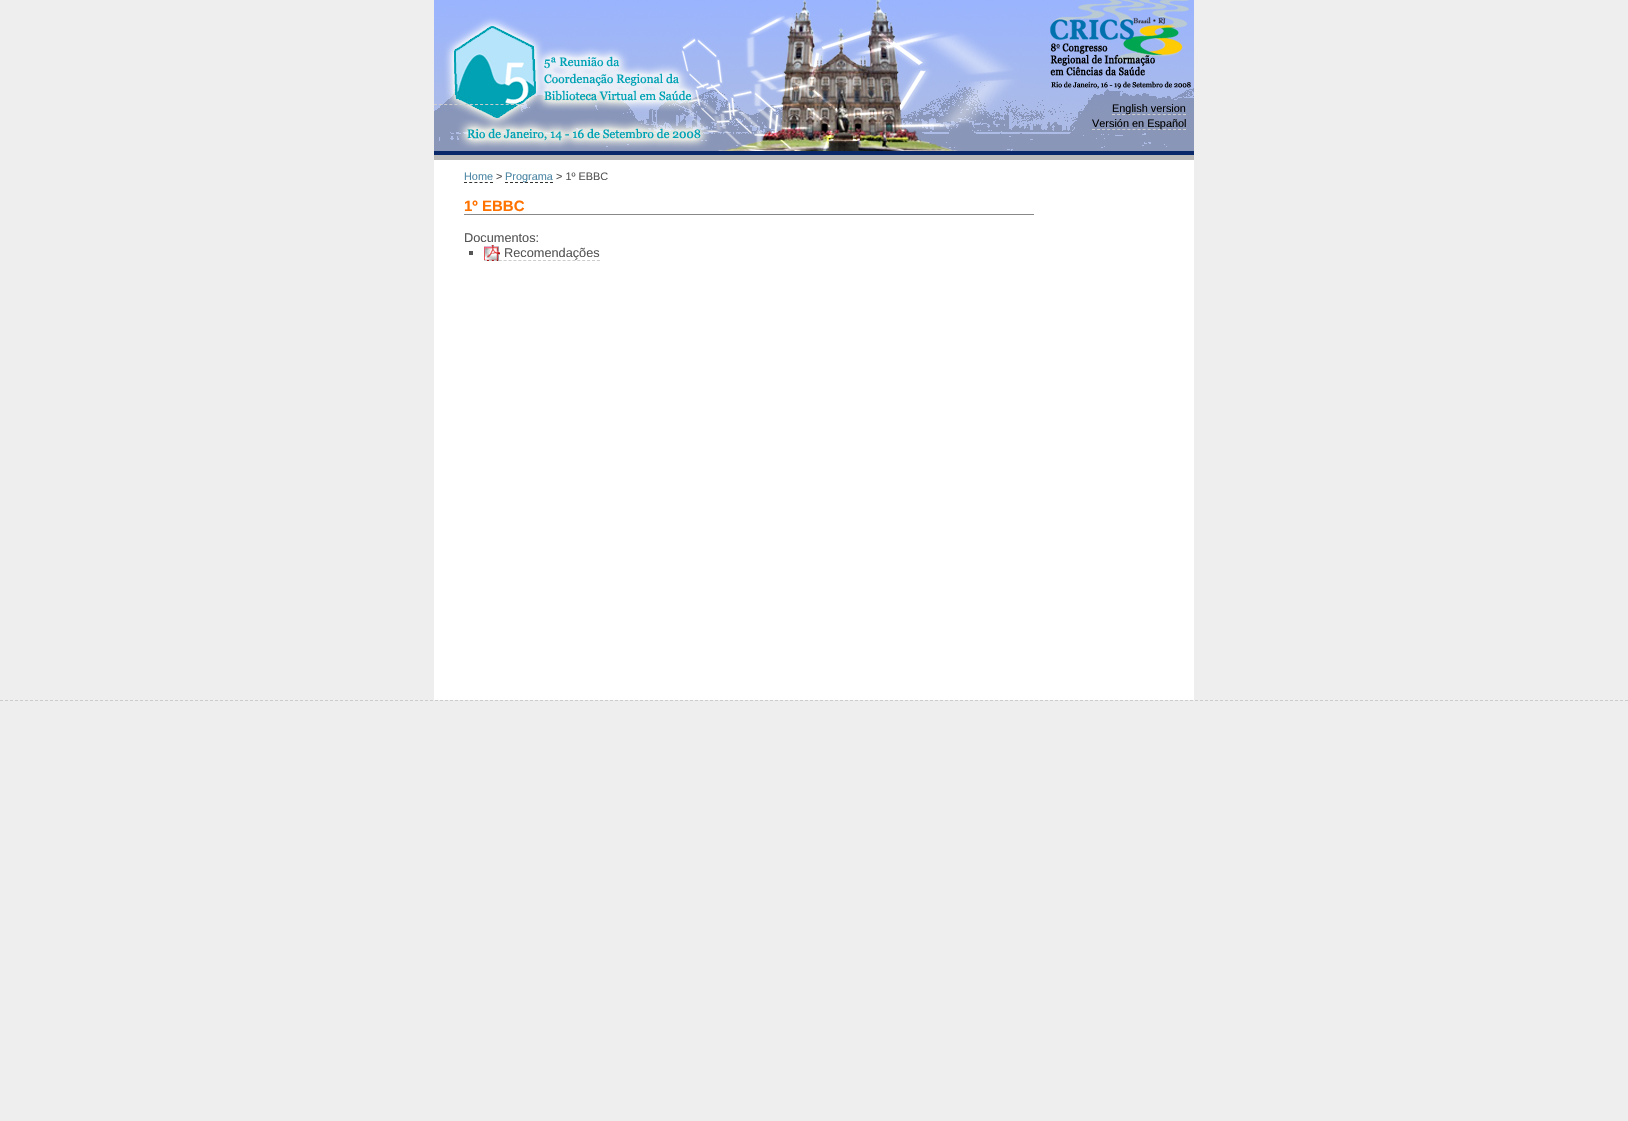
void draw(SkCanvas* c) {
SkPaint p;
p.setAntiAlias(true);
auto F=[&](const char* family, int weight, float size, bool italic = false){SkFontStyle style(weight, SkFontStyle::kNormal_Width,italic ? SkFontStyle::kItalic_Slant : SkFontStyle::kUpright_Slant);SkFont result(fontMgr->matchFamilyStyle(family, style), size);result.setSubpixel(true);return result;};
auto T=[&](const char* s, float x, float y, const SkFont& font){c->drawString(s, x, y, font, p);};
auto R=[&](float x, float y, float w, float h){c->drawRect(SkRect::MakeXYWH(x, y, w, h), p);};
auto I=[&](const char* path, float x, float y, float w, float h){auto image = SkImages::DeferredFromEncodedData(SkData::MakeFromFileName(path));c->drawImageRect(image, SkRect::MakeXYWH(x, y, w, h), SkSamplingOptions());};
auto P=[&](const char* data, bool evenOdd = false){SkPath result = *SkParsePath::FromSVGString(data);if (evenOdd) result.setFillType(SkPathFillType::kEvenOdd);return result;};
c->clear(0xffeeeeee);
p.setStroke(true);
p.setStrokeWidth(1);
p.setColor(0xffcccccc);
p.setPathEffect(SkDashPathEffect::Make({{3,2}}, 0));
c->drawPath(P("M0 700.5h1628"),p);
p.setPathEffect(nullptr);
p.setStroke(false);
p.setColor(0xffffffff);
R(434,160,760,540);
I("1.png",434,0,760,160);
p.setStroke(true);
p.setColor(0xffcccccc);
p.setPathEffect(SkDashPathEffect::Make({{3,2.12f}}, 0));
c->drawPath(P("M434 104.5h90"),p);
p.setPathEffect(nullptr);
p.setPathEffect(SkDashPathEffect::Make({{3,2.07f}}, 0));
c->drawPath(P("M1112 114.5h74"),p);
p.setPathEffect(nullptr);
auto f1 = F("Liberation Sans",400,10.9);
p.setStroke(false);
p.setColor(0xff000000);
T("English version",1112,112,f1);
p.setStroke(true);
p.setColor(0xffcccccc);
p.setPathEffect(SkDashPathEffect::Make({{3,2.06f}}, 0));
c->drawPath(P("M1092 129.5h94"),p);
p.setPathEffect(nullptr);
p.setStroke(false);
p.setColor(0xff000000);
T("Versión en Español",1092,127,f1);
p.setColor(0xff4c86a4);
T("Home",464,180,f1);
p.setStroke(true);
p.setColor(0xff333333);
p.setPathEffect(SkDashPathEffect::Make({{3,2.2f}}, 0));
c->drawPath(P("M464 182.5h29"),p);
p.setPathEffect(nullptr);
p.setStroke(false);
p.setColor(0xff555555);
T(">",496,180,f1);
p.setStroke(true);
p.setColor(0xff333333);
p.setPathEffect(SkDashPathEffect::Make({{3,2}}, 0));
c->drawPath(P("M505 182.5h48"),p);
p.setPathEffect(nullptr);
p.setStroke(false);
p.setColor(0xff4c86a4);
T("Programa",505,180,f1);
p.setColor(0xff555555);
T("> 1º EBBC",556,180,f1);
p.setColor(0xff888888);
R(464,214,570,1);
auto f2 = F("Liberation Sans",700,15);
p.setColor(0xffff7200);
T("1º EBBC",464,211,f2);
auto f3 = F("Liberation Sans",400,12.75);
p.setColor(0xff555555);
T("Documentos:",464,242,f3);
R(469,251,4,4);
I("2.png",484,245,16,16);
T("Recomendações",504,257,f3);
p.setStroke(true);
p.setColor(0xffcccccc);
p.setPathEffect(SkDashPathEffect::Make({{3,1.91f}}, 0));
c->drawPath(P("M484 260.5h116"),p);
p.setPathEffect(nullptr);
}
